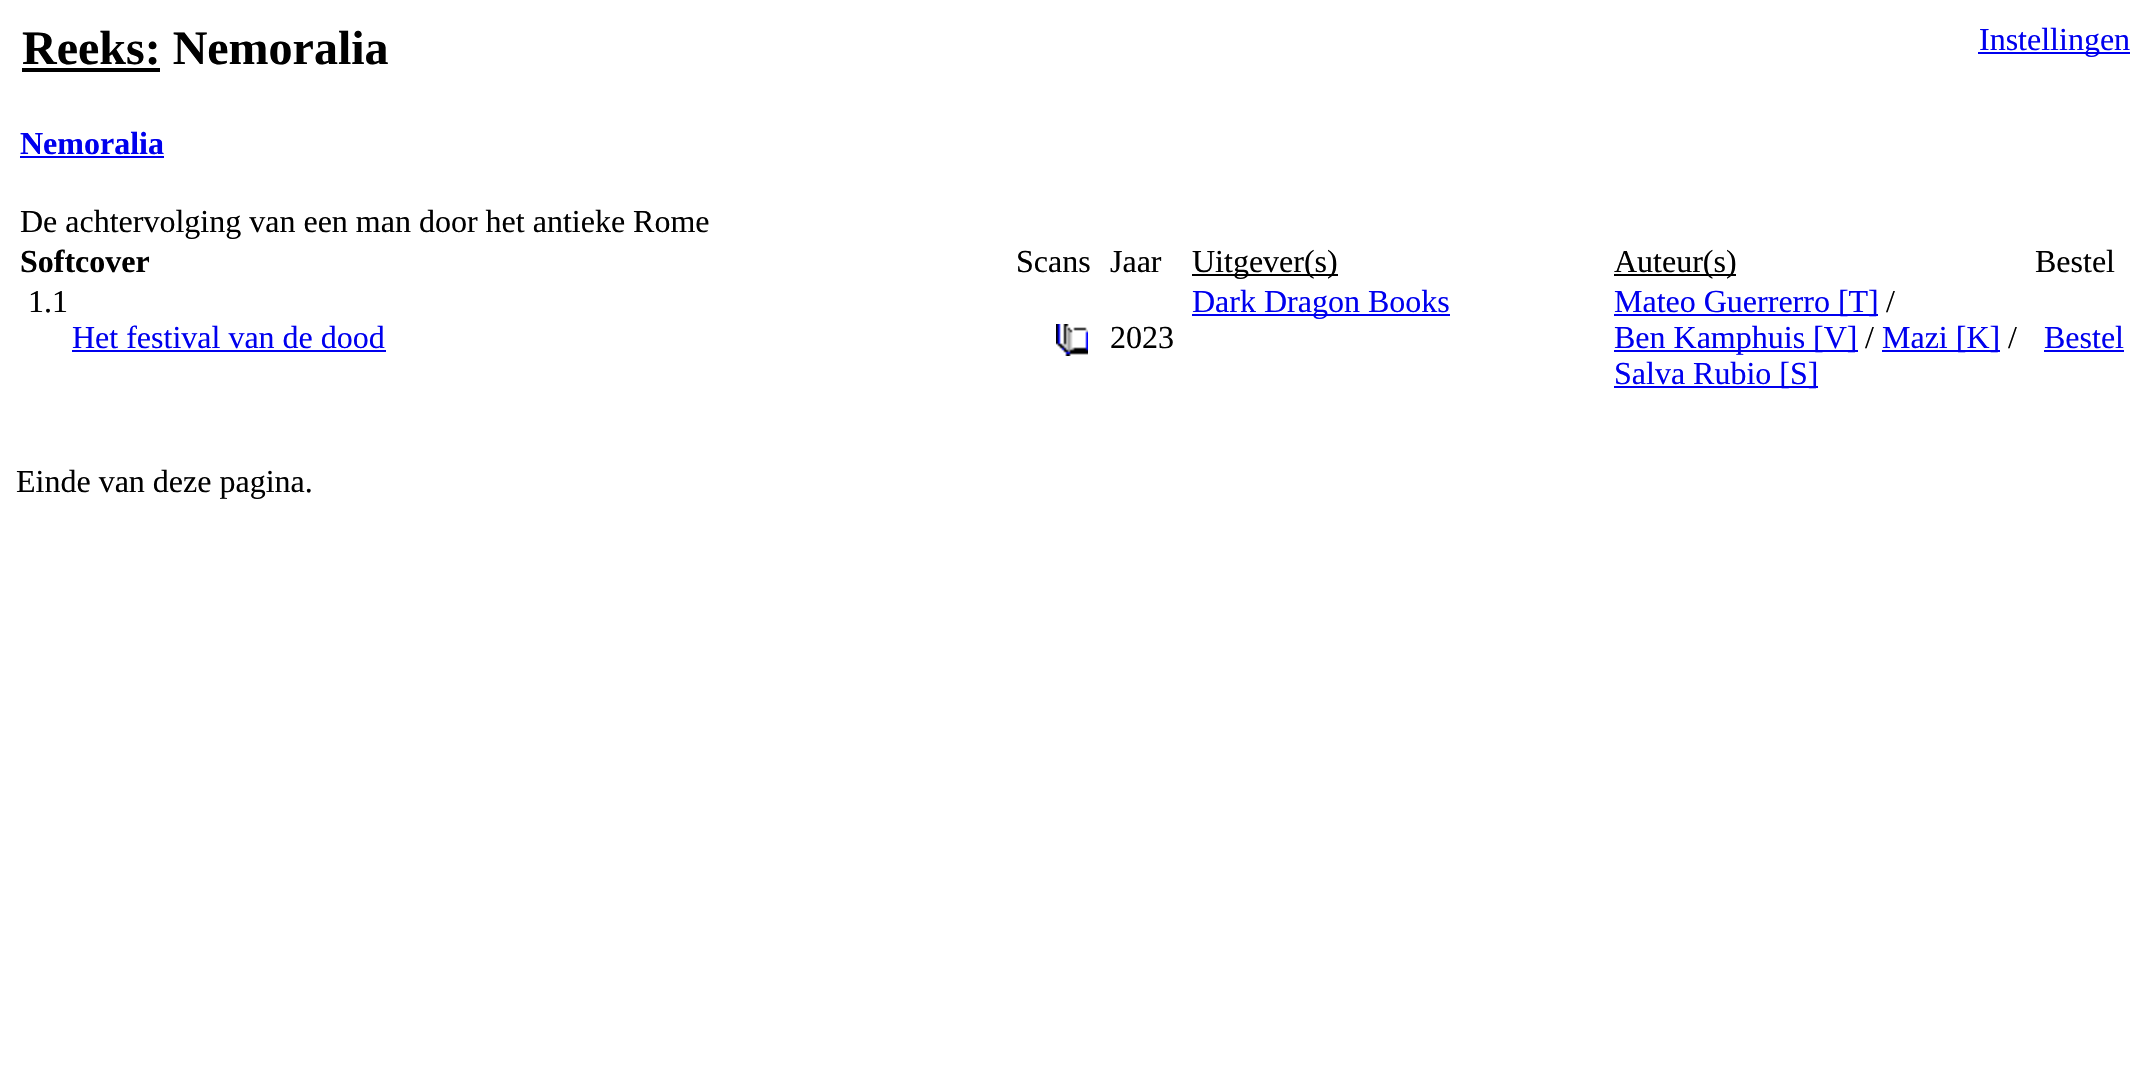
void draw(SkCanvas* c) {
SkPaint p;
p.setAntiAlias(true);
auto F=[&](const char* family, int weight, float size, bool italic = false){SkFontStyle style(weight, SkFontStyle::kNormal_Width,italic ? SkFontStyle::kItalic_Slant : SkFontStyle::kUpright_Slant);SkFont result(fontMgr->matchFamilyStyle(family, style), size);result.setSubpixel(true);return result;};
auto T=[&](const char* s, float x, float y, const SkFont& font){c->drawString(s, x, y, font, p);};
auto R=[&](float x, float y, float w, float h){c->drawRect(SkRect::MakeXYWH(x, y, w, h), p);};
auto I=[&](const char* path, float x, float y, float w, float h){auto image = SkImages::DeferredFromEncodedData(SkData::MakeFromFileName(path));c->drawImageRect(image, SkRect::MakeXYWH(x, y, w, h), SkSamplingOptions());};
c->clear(0xffffffff);
auto f1 = F("Liberation Serif",700,48);
p.setColor(0xff000000);
T("Reeks: Nemoralia",22,64,f1);
R(22,68,138,4);
p.setColor(0xff0000ee);
R(1978,52,152,2);
auto f2 = F("Liberation Serif",400,32);
T("Instellingen",1979,50,f2);
auto f3 = F("Liberation Serif",700,32);
T("Nemoralia",20,154,f3);
R(20,156,144,2);
p.setColor(0xff000000);
T("De achtervolging van een man door het antieke Rome",20,232,f2);
T("Softcover",20,272,f3);
T("Scans",1016,272,f2);
T("Jaar",1110,272,f2);
R(1192,274,146,2);
T("Uitgever(s)",1192,272,f2);
R(1614,274,122,2);
T("Auteur(s)",1614,272,f2);
T("Bestel",2035,272,f2);
T("1.1",28,312,f2);
p.setColor(0xff0000ee);
R(1192,314,258,2);
T("Dark Dragon Books",1192,312,f2);
R(1614,314,264,2);
T("Mateo Guerrerro [T]",1614,312,f2);
p.setColor(0xff000000);
T("/",1886,312,f2);
p.setColor(0xff0000ee);
R(1614,350,244,2);
T("Ben Kamphuis [V]",1614,348,f2);
p.setColor(0xff000000);
T("/",1865,348,f2);
p.setColor(0xff0000ee);
R(1882,350,118,2);
T("Mazi [K]",1882,348,f2);
p.setColor(0xff000000);
T("/",2008,348,f2);
p.setColor(0xff0000ee);
R(1614,386,204,2);
T("Salva Rubio [S]",1614,384,f2);
T("Het festival van de dood",72,348,f2);
R(72,350,314,2);
I("1.png",1056,324,32,32);
p.setColor(0xff000000);
T("2023",1110,348,f2);
p.setColor(0xff0000ee);
T("Bestel",2044,348,f2);
R(2044,350,80,2);
p.setColor(0xff000000);
T("Einde van deze pagina.",16,492,f2);
}
